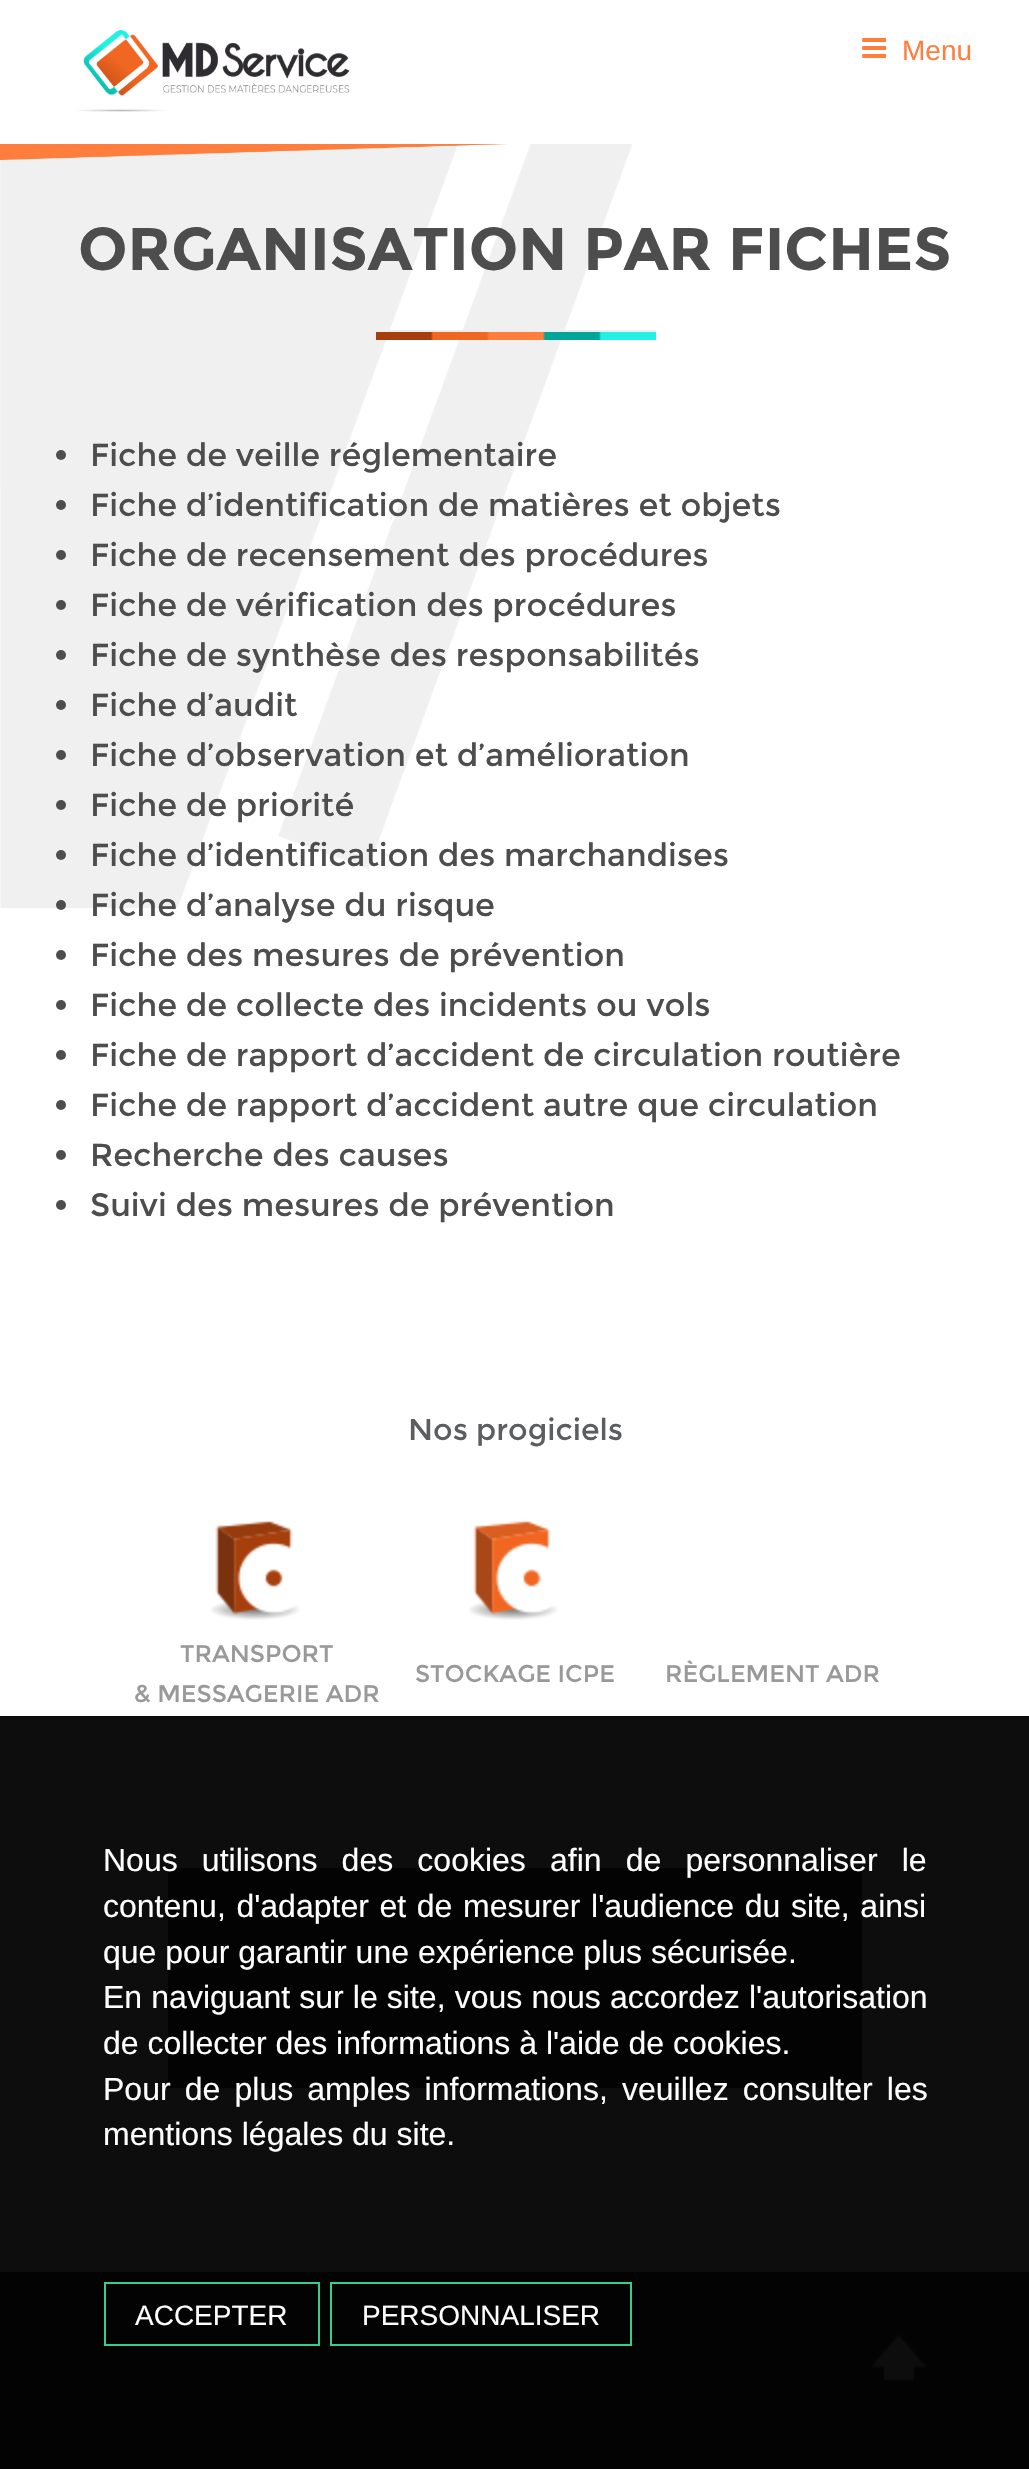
void draw(SkCanvas* c) {
SkPaint p;
p.setAntiAlias(true);
auto F=[&](const char* family, int weight, float size, bool italic = false){SkFontStyle style(weight, SkFontStyle::kNormal_Width,italic ? SkFontStyle::kItalic_Slant : SkFontStyle::kUpright_Slant);SkFont result(fontMgr->matchFamilyStyle(family, style), size);result.setSubpixel(true);return result;};
auto T=[&](const char* s, float x, float y, const SkFont& font){c->drawString(s, x, y, font, p);};
auto L=[&](const char* s, float x, float y, const SkFont& font, const SkPaint& ink, float letter, float word){std::vector<SkGlyphID> glyphs(font.countText(s, strlen(s), SkTextEncoding::kUTF8));std::vector<float> xs(glyphs.size());font.textToGlyphs(s, strlen(s), SkTextEncoding::kUTF8, glyphs);font.getXPos(glyphs, xs, x);float extra = 0;for (size_t i = 0; i < glyphs.size(); i++) {xs[i] += extra;extra += letter + word * (glyphs[i] == font.unicharToGlyph(' '));}c->drawTextBlob(SkTextBlob::MakeFromPosHGlyphs(glyphs, xs, y, font), 0, 0, ink);};
auto R=[&](float x, float y, float w, float h){c->drawRect(SkRect::MakeXYWH(x, y, w, h), p);};
auto I=[&](const char* path, float x, float y, float w, float h){auto image = SkImages::DeferredFromEncodedData(SkData::MakeFromFileName(path));c->drawImageRect(image, SkRect::MakeXYWH(x, y, w, h), SkSamplingOptions());};
c->clear(0xffffffff);
p.setColor(0xff0d0d0d);
R(0,1716,1029,556);
I("1.png",77,30,273,82);
I("2.png",862,38,25,20);
auto f1 = F("Liberation Sans",400,28);
p.setColor(0xffff7e3d);
T("Menu",902,60,f1);
I("4.png",0,144,633,764);
I("3.png",0,144,508,16);
auto f2 = F("Montserrat",700,60);
p.setColor(0xff4d4d4d);
T("ORGANISATION PAR FICHES",78,270,f2);
I("5.png",376,332,280,8);
p.setColor(0xffeeeeee);
R(388,330,268,2);
p.setColor(0xff4d4d4d);
c->drawCircle(61,455,5,p);
auto f3 = F("Montserrat",400,32);
T("Fiche de veille réglementaire",90,466,f3);
c->drawCircle(61,505,5,p);
T("Fiche d’identification de matières et objets",90,516,f3);
c->drawCircle(61,555,5,p);
T("Fiche de recensement des procédures",90,566,f3);
c->drawCircle(61,605,5,p);
T("Fiche de vérification des procédures",90,616,f3);
c->drawCircle(61,655,5,p);
T("Fiche de synthèse des responsabilités",90,666,f3);
c->drawCircle(61,705,5,p);
T("Fiche d’audit",90,716,f3);
c->drawCircle(61,755,5,p);
T("Fiche d’observation et d’amélioration",90,766,f3);
c->drawCircle(61,805,5,p);
T("Fiche de priorité",90,816,f3);
c->drawCircle(61,855,5,p);
T("Fiche d’identification des marchandises",90,866,f3);
c->drawCircle(61,905,5,p);
T("Fiche d’analyse du risque",90,916,f3);
c->drawCircle(61,955,5,p);
T("Fiche des mesures de prévention",90,966,f3);
c->drawCircle(61,1005,5,p);
T("Fiche de collecte des incidents ou vols",90,1016,f3);
c->drawCircle(61,1055,5,p);
T("Fiche de rapport d’accident de circulation routière",90,1066,f3);
c->drawCircle(61,1105,5,p);
T("Fiche de rapport d’accident autre que circulation",90,1116,f3);
c->drawCircle(61,1155,5,p);
T("Recherche des causes",90,1166,f3);
c->drawCircle(61,1205,5,p);
T("Suivi des mesures de prévention",90,1216,f3);
auto f4 = F("Montserrat",400,30);
p.setColor(0xff5c5d60);
T("Nos progiciels",408,1440,f4);
I("6.png",211,1521,89,99);
auto f5 = F("Montserrat",400,24);
p.setColor(0xff999999);
T("TRANSPORT",180,1662,f5);
T("& MESSAGERIE ADR",134,1702,f5);
I("7.png",469,1521,89,99);
T("STOCKAGE ICPE",415,1682,f5);
T("RÈGLEMENT ADR",665,1682,f5);
p.setColor(0xff030303);
R(168,1868,694,220);
auto f6 = F("Liberation Sans",400,32);
p.setColor(0xffffffff);
L("Nous utilisons des cookies afin de personnaliser le",103,1871,f6,p,0,15.25);
L("contenu, d'adapter et de mesurer l'audience du site, ainsi",103,1917,f6,p,0,1.75);
T("que pour garantir une expérience plus sécurisée.",103,1963,f6);
L("En naviguant sur le site, vous nous accordez l'autorisation",103,2008,f6,p,0,.25);
T("de collecter des informations à l'aide de cookies.",103,2054,f6);
L("Pour de plus amples informations, veuillez consulter les",103,2100,f6,p,0,5.25);
T("mentions légales du site.",103,2145,f6);
p.setColor(0xff030303);
R(0,2272,1029,197);
p.setStroke(true);
p.setStrokeWidth(2);
p.setColor(0xff37cd8f);
c->drawRect(SkRect::MakeXYWH(105,2283,214,62),p);
p.setStroke(false);
p.setColor(0xffffffff);
T("ACCEPTER",135,2325,f1);
p.setStroke(true);
p.setColor(0xff37cd8f);
c->drawRect(SkRect::MakeXYWH(331,2283,300,62),p);
p.setStroke(false);
p.setColor(0xffffffff);
T("PERSONNALISER",362,2325,f1);
I("8.png",835,2295,126,126);
}
